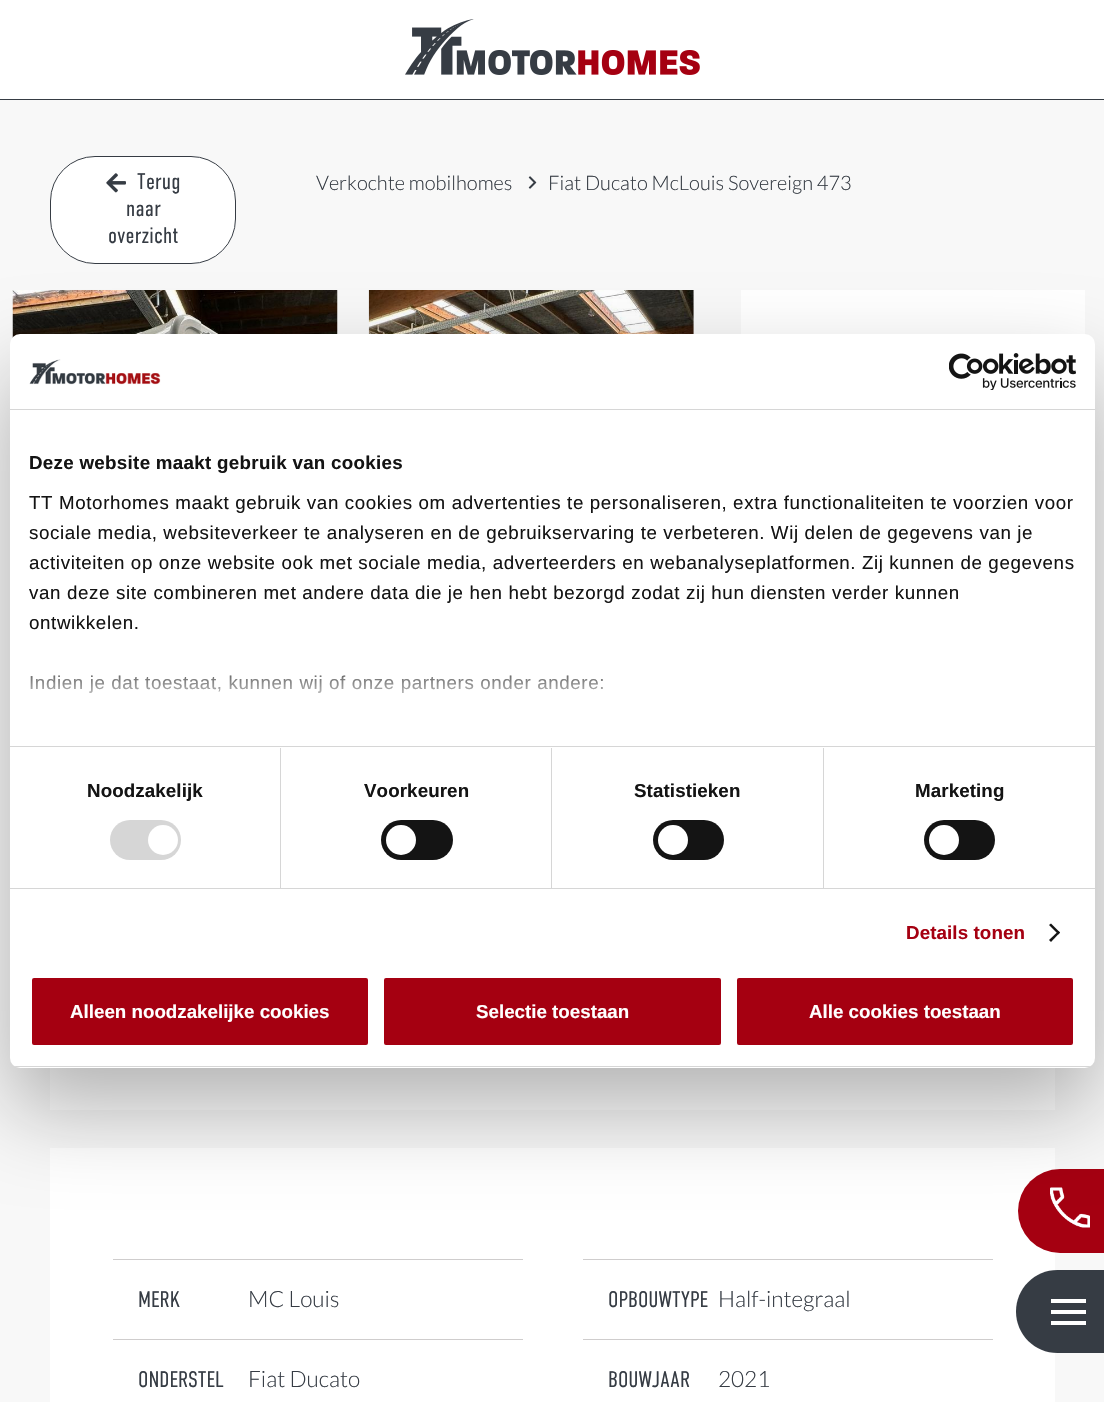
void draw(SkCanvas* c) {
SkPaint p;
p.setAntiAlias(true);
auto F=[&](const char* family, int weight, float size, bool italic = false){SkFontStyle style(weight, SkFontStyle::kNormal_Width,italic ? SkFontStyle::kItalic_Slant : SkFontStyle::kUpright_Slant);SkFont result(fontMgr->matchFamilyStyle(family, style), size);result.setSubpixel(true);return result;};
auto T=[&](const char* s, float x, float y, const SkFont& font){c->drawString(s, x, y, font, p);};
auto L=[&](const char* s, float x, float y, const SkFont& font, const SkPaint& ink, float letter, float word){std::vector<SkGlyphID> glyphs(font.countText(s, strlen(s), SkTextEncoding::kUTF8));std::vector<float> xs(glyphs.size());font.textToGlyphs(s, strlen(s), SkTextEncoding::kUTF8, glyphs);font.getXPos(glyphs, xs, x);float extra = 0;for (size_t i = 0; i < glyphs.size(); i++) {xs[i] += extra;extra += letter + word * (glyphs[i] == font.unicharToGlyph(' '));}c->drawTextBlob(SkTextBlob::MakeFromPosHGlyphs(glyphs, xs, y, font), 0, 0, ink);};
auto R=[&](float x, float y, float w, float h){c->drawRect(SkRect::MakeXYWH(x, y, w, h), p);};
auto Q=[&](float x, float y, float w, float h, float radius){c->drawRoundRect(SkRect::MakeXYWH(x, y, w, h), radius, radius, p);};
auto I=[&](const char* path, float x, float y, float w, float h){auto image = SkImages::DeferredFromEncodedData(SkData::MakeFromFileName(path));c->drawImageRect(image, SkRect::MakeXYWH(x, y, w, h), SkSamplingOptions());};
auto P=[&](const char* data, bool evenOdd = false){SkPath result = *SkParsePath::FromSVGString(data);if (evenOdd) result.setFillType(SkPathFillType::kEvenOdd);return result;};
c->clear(0xfff8f8f8);
p.setColor(0xffffffff);
R(0,0,1104,99);
p.setColor(0xff363c44);
R(0,99,1104,1);
I("1.png",405,19,295,56);
p.setColor(0xffffffff);
R(50,1148,1005,254);
p.setColor(0xff363c44);
c->drawPath(P("M1057.5 1270h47.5v83h-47.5c-23 0-41.5-18.5-41.5-41.5c0-23 18.5-41.5 41.5-41.5z"),p);
p.setColor(0xffffffff);
R(1051,1310,35,4);
R(1051,1299,35,4);
R(1051,1321,35,4);
Q(50,156,186,108,45);
I("2.png",106,173,20,20);
p.setStroke(true);
p.setStrokeWidth(1);
p.setColor(0xff363c44);
c->drawRoundRect(SkRect::MakeXYWH(50.5,156.5,185,107),44.5,44.5,p);
auto f1 = F("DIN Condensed",300,22.5);
p.setStroke(false);
L("Terug",137,189,f1,p,.25,0);
L("naar",126,216,f1,p,.25,0);
L("overzicht",108,243,f1,p,.25,0);
auto f2 = F("Lato",300,20);
T("Verkochte mobilhomes",316,190,f2);
I("3.png",528,176,9,13);
T("Fiat Ducato McLouis Sovereign 473",548,190,f2);
I("4.png",12,290,326,48);
I("5.png",368,290,326,44);
p.setColor(0xffffffff);
R(741,290,344,44);
R(50,1068,1005,42);
p.setColor(0xffcfcdcd);
R(113,1259,410,1);
R(113,1339,410,1);
p.setColor(0xff363c44);
T("MERK",138,1307,f1);
auto f3 = F("Lato",300,22.5);
T("MC Louis",248,1307,f3);
T("ONDERSTEL",138,1387,f1);
T("Fiat Ducato",248,1387,f3);
p.setColor(0xffcfcdcd);
R(583,1259,410,1);
R(583,1339,410,1);
p.setColor(0xff363c44);
T("OPBOUWTYPE",608,1307,f1);
T("Half-integraal",718,1307,f3);
T("BOUWJAAR",608,1387,f1);
T("2021",718,1387,f3);
p.setColor(0xffa50011);
Q(1018,1169,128,84,42);
I("8.png",1050,1187,40,41);
p.setColor(0x4d000000);
p.setMaskFilter(SkMaskFilter::MakeBlur(kNormal_SkBlurStyle, 42.5));
c->drawRoundRect(SkRect::MakeXYWH(10,374,1085,734),10,10,p);
p.setMaskFilter(nullptr);
p.setColor(0xffffffff);
Q(10,334,1085,734,10);
p.setColor(0xffd6d6d6);
R(10,409,1085,1);
I("6.png",29,359,132,26);
I("7.png",949,353,127,37);
R(10,746,1085,1);
auto f4 = F("Liberation Sans",700,18.75);
p.setColor(0xff141414);
L("Deze website maakt gebruik van cookies",29,469,f4,p,.3,0);
auto f5 = F("Liberation Sans",400,18.75);
L("TT Motorhomes maakt gebruik van cookies om advertenties te personaliseren, extra functionaliteiten te voorzien voor",29,509,f5,p,.62,0);
L("sociale media, websiteverkeer te analyseren en de gebruikservaring te verbeteren. Wij delen de gegevens van je",29,539,f5,p,.62,0);
L("activiteiten op onze website ook met sociale media, adverteerders en webanalyseplatformen. Zij kunnen de gegevens",29,569,f5,p,.62,0);
L("van deze site combineren met andere data die je hen hebt bezorgd zodat zij hun diensten verder kunnen",29,599,f5,p,.62,0);
L("ontwikkelen.",29,629,f5,p,.62,0);
L("Indien je dat toestaat, kunnen wij of onze partners onder andere:",29,689,f5,p,.62,0);
{
const SkColor colors[] = {0xffffffff,0xccffffff,0x00ffffff};
const float stops[] = {0,.5,1};
const SkPoint ends[] = {{544,747}, {544,653}};
p.setShader(SkGradientShader::MakeLinear(ends, colors, stops, 3, SkTileMode::kClamp));
p.setAlpha(255);
}
R(30,675,573,18);
p.setShader(nullptr);
p.setColor(0xffd6d6d6);
R(10,888,1085,1);
R(280,748,1,140);
p.setColor(0xff141414);
L("Noodzakelijk",87,797,f4,p,.1,0);
p.setColor(0xffd6d6d6);
Q(110,820,71,40,20);
p.setColor(0xffffffff);
c->drawCircle(163,840,15,p);
p.setColor(0xffd6d6d6);
R(551,748,1,140);
p.setColor(0xff141414);
L("Voorkeuren",364,797,f4,p,.1,0);
Q(381,820,72,40,20);
p.setColor(0xffffffff);
c->drawCircle(401,840,15,p);
p.setColor(0xffd6d6d6);
R(823,748,1,140);
p.setColor(0xff141414);
L("Statistieken",634,797,f4,p,.1,0);
Q(653,820,71,40,20);
p.setColor(0xffffffff);
c->drawCircle(673,840,15,p);
p.setColor(0xff141414);
L("Marketing",915,797,f4,p,.1,0);
Q(924,820,71,40,20);
p.setColor(0xffffffff);
c->drawCircle(944,840,15,p);
p.setColor(0xffa50011);
L("Details tonen",906,939,f4,p,.1,0);
p.setColor(0xff141414);
c->drawPath(P("M1051 923.5l9 9l-1.5 2l-9.5-9.5z"),p);
c->drawPath(P("M1058.5 931l1.5 1.5l-9 9.5l-2-2z"),p);
c->save();
c->clipPath(P("M20 334h1065c5.5 0 10 4.5 10 10v714c0 5.5-4.5 10-10 10h-1065c-5.5 0-10-4.5-10-10v-714c0-5.5 4.5-10 10-10z"),true);
p.setColor(0xffd6d6d6);
R(10,1066,1085,1);
c->restore();
p.setColor(0xffa50011);
c->drawRoundRect(SkRect::MakeXYWH(30.5,976.5,339,70),3.5,3.5,p);
p.setStroke(true);
p.setStrokeWidth(3);
p.setColor(0xffffffff);
c->drawRoundRect(SkRect::MakeXYWH(30.5,976.5,339,70),3.5,3.5,p);
p.setStroke(false);
T("Alleen noodzakelijke cookies",70,1018,f4);
p.setColor(0xffa50011);
c->drawRoundRect(SkRect::MakeXYWH(382.5,976.5,340,70),3.5,3.5,p);
p.setStroke(true);
p.setColor(0xffffffff);
c->drawRoundRect(SkRect::MakeXYWH(382.5,976.5,340,70),3.5,3.5,p);
p.setStroke(false);
T("Selectie toestaan",476,1018,f4);
p.setColor(0xffa50011);
c->drawRoundRect(SkRect::MakeXYWH(735.5,976.5,339,70),3.5,3.5,p);
p.setStroke(true);
p.setColor(0xffffffff);
c->drawRoundRect(SkRect::MakeXYWH(735.5,976.5,339,70),3.5,3.5,p);
p.setStroke(false);
T("Alle cookies toestaan",809,1018,f4);
}
